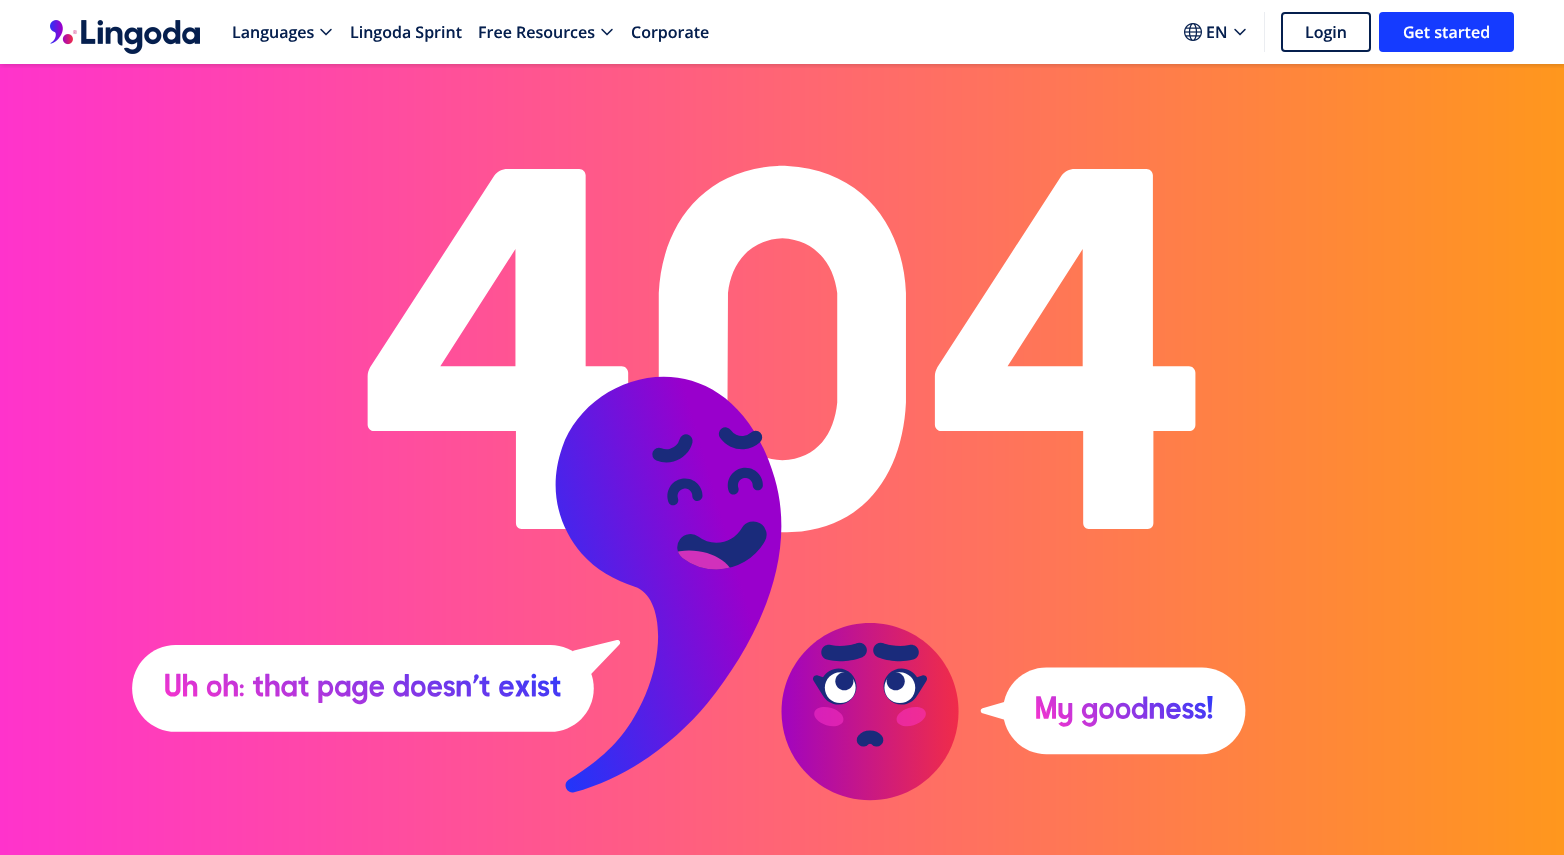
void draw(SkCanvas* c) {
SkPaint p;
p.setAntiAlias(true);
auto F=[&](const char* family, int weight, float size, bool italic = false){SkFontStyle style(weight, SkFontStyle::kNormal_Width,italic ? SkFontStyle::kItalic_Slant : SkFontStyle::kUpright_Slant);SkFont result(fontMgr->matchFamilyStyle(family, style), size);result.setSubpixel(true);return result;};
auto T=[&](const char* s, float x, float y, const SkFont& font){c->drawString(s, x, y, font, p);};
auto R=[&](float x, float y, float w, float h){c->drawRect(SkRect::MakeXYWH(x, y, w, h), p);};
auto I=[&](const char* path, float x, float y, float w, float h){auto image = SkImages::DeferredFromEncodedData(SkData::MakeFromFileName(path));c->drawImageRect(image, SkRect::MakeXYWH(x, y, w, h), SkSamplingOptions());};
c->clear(0xffffffff);
{
const SkColor colors[] = {0xffff33cc,0xffff971d};
const float stops[] = {0,1};
const SkPoint ends[] = {{0,639}, {1564,639}};
p.setShader(SkGradientShader::MakeLinear(ends, colors, stops, 2, SkTileMode::kClamp));
p.setAlpha(255);
}
R(0,64,1564,791);
c->save();
c->clipRect(SkRect::MakeXYWH(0,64,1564,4));
p.setShader(nullptr);
p.setColor(0x29000000);
p.setMaskFilter(SkMaskFilter::MakeBlur(kNormal_SkBlurStyle, 2.5));
c->drawRect(SkRect::MakeXYWH(1,1,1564,64),p);
p.setMaskFilter(nullptr);
c->restore();
I("1.png",50,20,150,34);
auto f1 = F("Open Sans",600,16);
p.setColor(0xff051f4e);
T("Languages",232,38,f1);
I("2.png",320,28,12,8);
T("Lingoda Sprint",350,38,f1);
T("Free Resources",478,38,f1);
I("2.png",601,28,12,8);
T("Corporate",631,38,f1);
I("3.png",1184,23,18,18);
T("EN",1206,38,f1);
I("2.png",1234,28,12,8);
p.setColor(0xffebedf1);
R(1264,12,1,40);
p.setStroke(true);
p.setStrokeWidth(2);
p.setColor(0xff051f4e);
c->drawRoundRect(SkRect::MakeXYWH(1282,13,88,38),3,3,p);
p.setStroke(false);
T("Login",1305,38,f1);
p.setColor(0xff153bff);
c->drawRoundRect(SkRect::MakeXYWH(1380,13,133,38),3,3,p);
p.setStroke(true);
c->drawRoundRect(SkRect::MakeXYWH(1380,13,133,38),3,3,p);
p.setStroke(false);
p.setColor(0xffffffff);
T("Get started",1403,38,f1);
I("4.png",132,165,1114,636);
}
